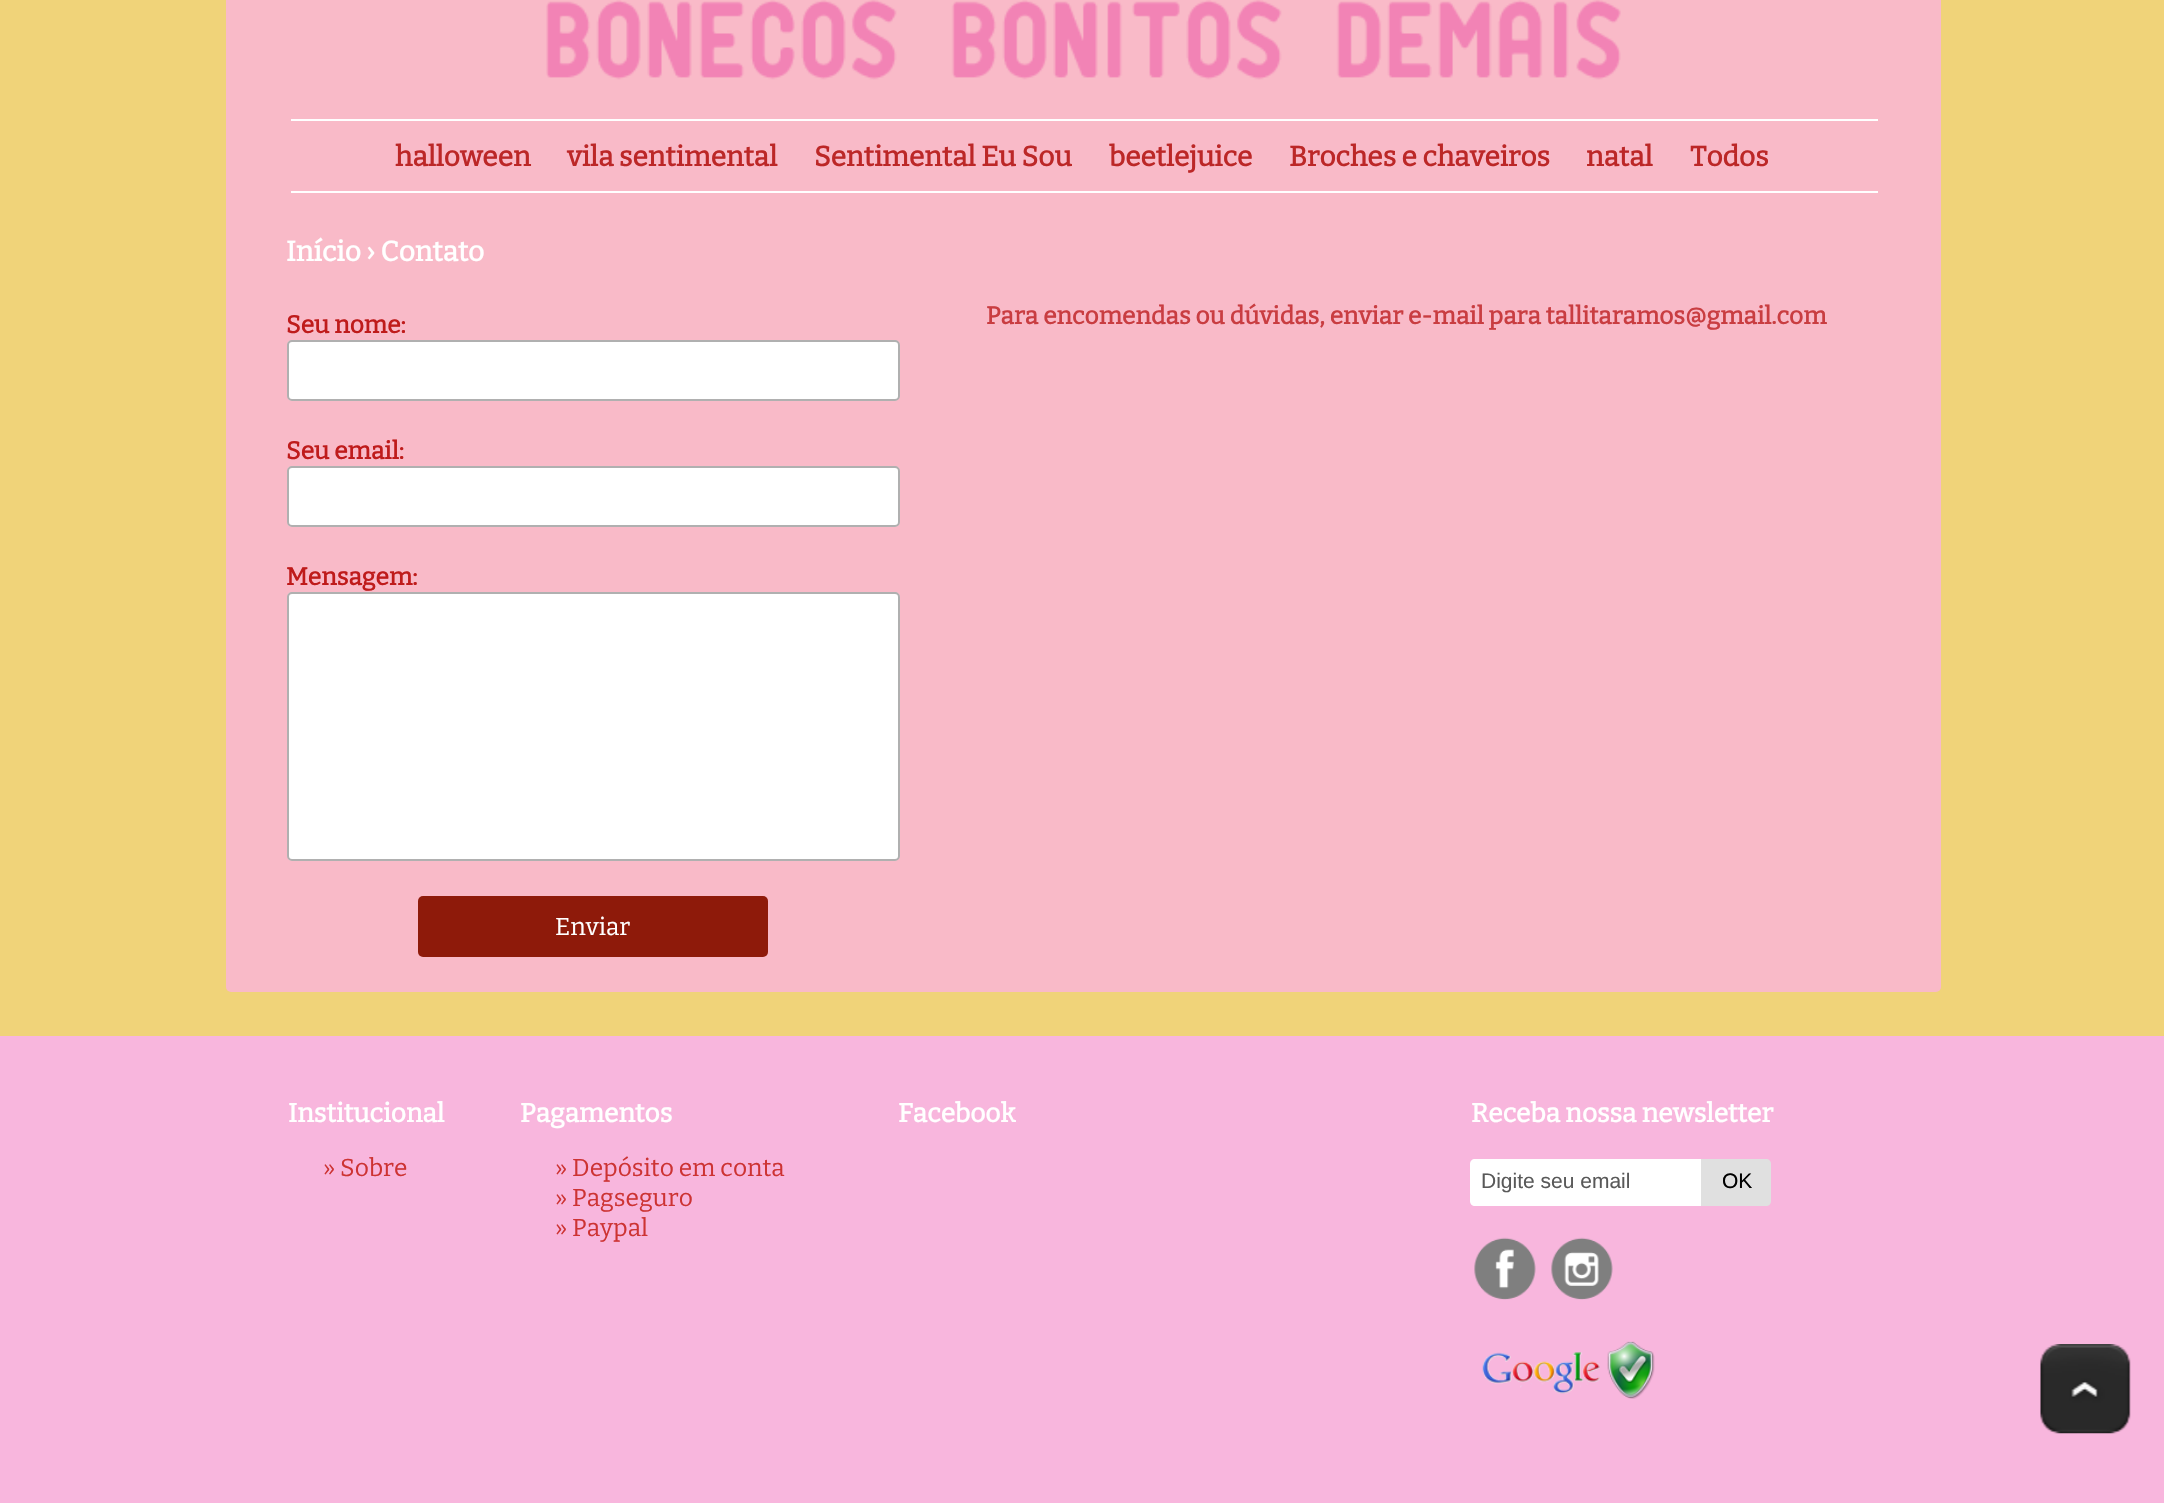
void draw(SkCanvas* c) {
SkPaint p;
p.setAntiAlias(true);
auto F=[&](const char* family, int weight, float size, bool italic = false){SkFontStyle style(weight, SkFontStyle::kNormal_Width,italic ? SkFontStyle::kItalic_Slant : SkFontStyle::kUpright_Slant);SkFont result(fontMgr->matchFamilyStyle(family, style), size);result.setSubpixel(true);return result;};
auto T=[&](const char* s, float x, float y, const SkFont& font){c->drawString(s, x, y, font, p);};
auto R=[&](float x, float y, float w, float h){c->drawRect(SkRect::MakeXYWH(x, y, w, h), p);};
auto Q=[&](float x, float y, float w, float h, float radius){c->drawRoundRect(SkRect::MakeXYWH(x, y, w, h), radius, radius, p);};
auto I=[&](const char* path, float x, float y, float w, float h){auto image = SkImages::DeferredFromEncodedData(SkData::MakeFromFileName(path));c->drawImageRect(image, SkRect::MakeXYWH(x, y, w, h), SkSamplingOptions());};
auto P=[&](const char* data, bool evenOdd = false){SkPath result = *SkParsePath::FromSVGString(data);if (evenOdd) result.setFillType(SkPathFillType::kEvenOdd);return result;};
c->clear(0xfff0d379);
p.setColor(0xfff9bac8);
Q(226,-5,1715,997,5);
I("1.png",546,0,1075,80);
p.setColor(0xffffffff);
R(291,119,1587,2);
R(291,191,1587,2);
auto f1 = F("Bitter",700,28);
p.setColor(0xffbc2727);
T("halloween",395,166,f1);
T("vila sentimental",567,166,f1);
T("Sentimental Eu Sou",814,166,f1);
T("beetlejuice",1109,166,f1);
T("Broches e chaveiros",1289,166,f1);
T("natal",1586,166,f1);
T("Todos",1690,166,f1);
p.setColor(0xffffffff);
T("Início › Contato",286,261,f1);
auto f2 = F("Bitter",700,24.5);
p.setColor(0xffbf1b1b);
T("Seu nome:",286,333,f2);
p.setColor(0xffffffff);
Q(287,340,613,61,5);
p.setStroke(true);
p.setStrokeWidth(2);
p.setColor(0x4f000000);
c->drawRoundRect(SkRect::MakeXYWH(288,341,611,59),4,4,p);
p.setStroke(false);
p.setColor(0xffbf1b1b);
T("Seu email:",286,459,f2);
p.setColor(0xffffffff);
Q(287,466,613,61,5);
p.setStroke(true);
p.setColor(0x4f000000);
c->drawRoundRect(SkRect::MakeXYWH(288,467,611,59),4,4,p);
p.setStroke(false);
p.setColor(0xffbf1b1b);
T("Mensagem:",286,585,f2);
p.setColor(0xffffffff);
Q(287,592,613,269,5);
p.setStroke(true);
p.setColor(0x4f000000);
c->drawRoundRect(SkRect::MakeXYWH(288,593,611,267),4,4,p);
p.setStroke(false);
p.setColor(0xff8e1a0a);
Q(418,896,350,61,5);
auto f3 = F("Bitter",100,24.5);
p.setColor(0xffffffff);
T("Enviar",555,935,f3);
p.setColor(0xffc93d41);
T("Para encomendas ou dúvidas, enviar e-mail para tallitaramos@gmail.com",986,324,f2);
p.setColor(0xfff8b6dd);
R(0,1036,2164,467);
auto f4 = F("Bitter",700,26.25);
p.setColor(0xffffffff);
T("Institucional",288,1122,f4);
p.setColor(0xffcd3333);
T("» Sobre",323,1176,f3);
p.setColor(0xffffffff);
T("Pagamentos",520,1122,f4);
p.setColor(0xffcd3333);
T("» Depósito em conta",555,1176,f3);
T("» Pagseguro",555,1206,f3);
T("» Paypal",555,1236,f3);
p.setColor(0xffffffff);
T("Facebook",898,1122,f4);
T("Receba nossa newsletter",1471,1122,f4);
c->drawPath(P("M1475 1159h226v47h-226c-3 0-5-2-5-5v-37c0-3 2-5 5-5z"),p);
auto f5 = F("Liberation Sans",400,21);
p.setColor(0xff595959);
T("Digite seu email",1481,1188,f5);
p.setColor(0xffe0e0e0);
c->drawPath(P("M1701 1159h65c3 0 5 2 5 5v37c0 3-2 5-5 5h-65z"),p);
p.setColor(0xff000000);
T("OK",1722,1188,f5);
I("2.png",1474,1237,62,63);
I("3.png",1551,1237,62,63);
I("4.png",1482,1341,173,58);
I("5.png",2040,1344,91,90);
}
